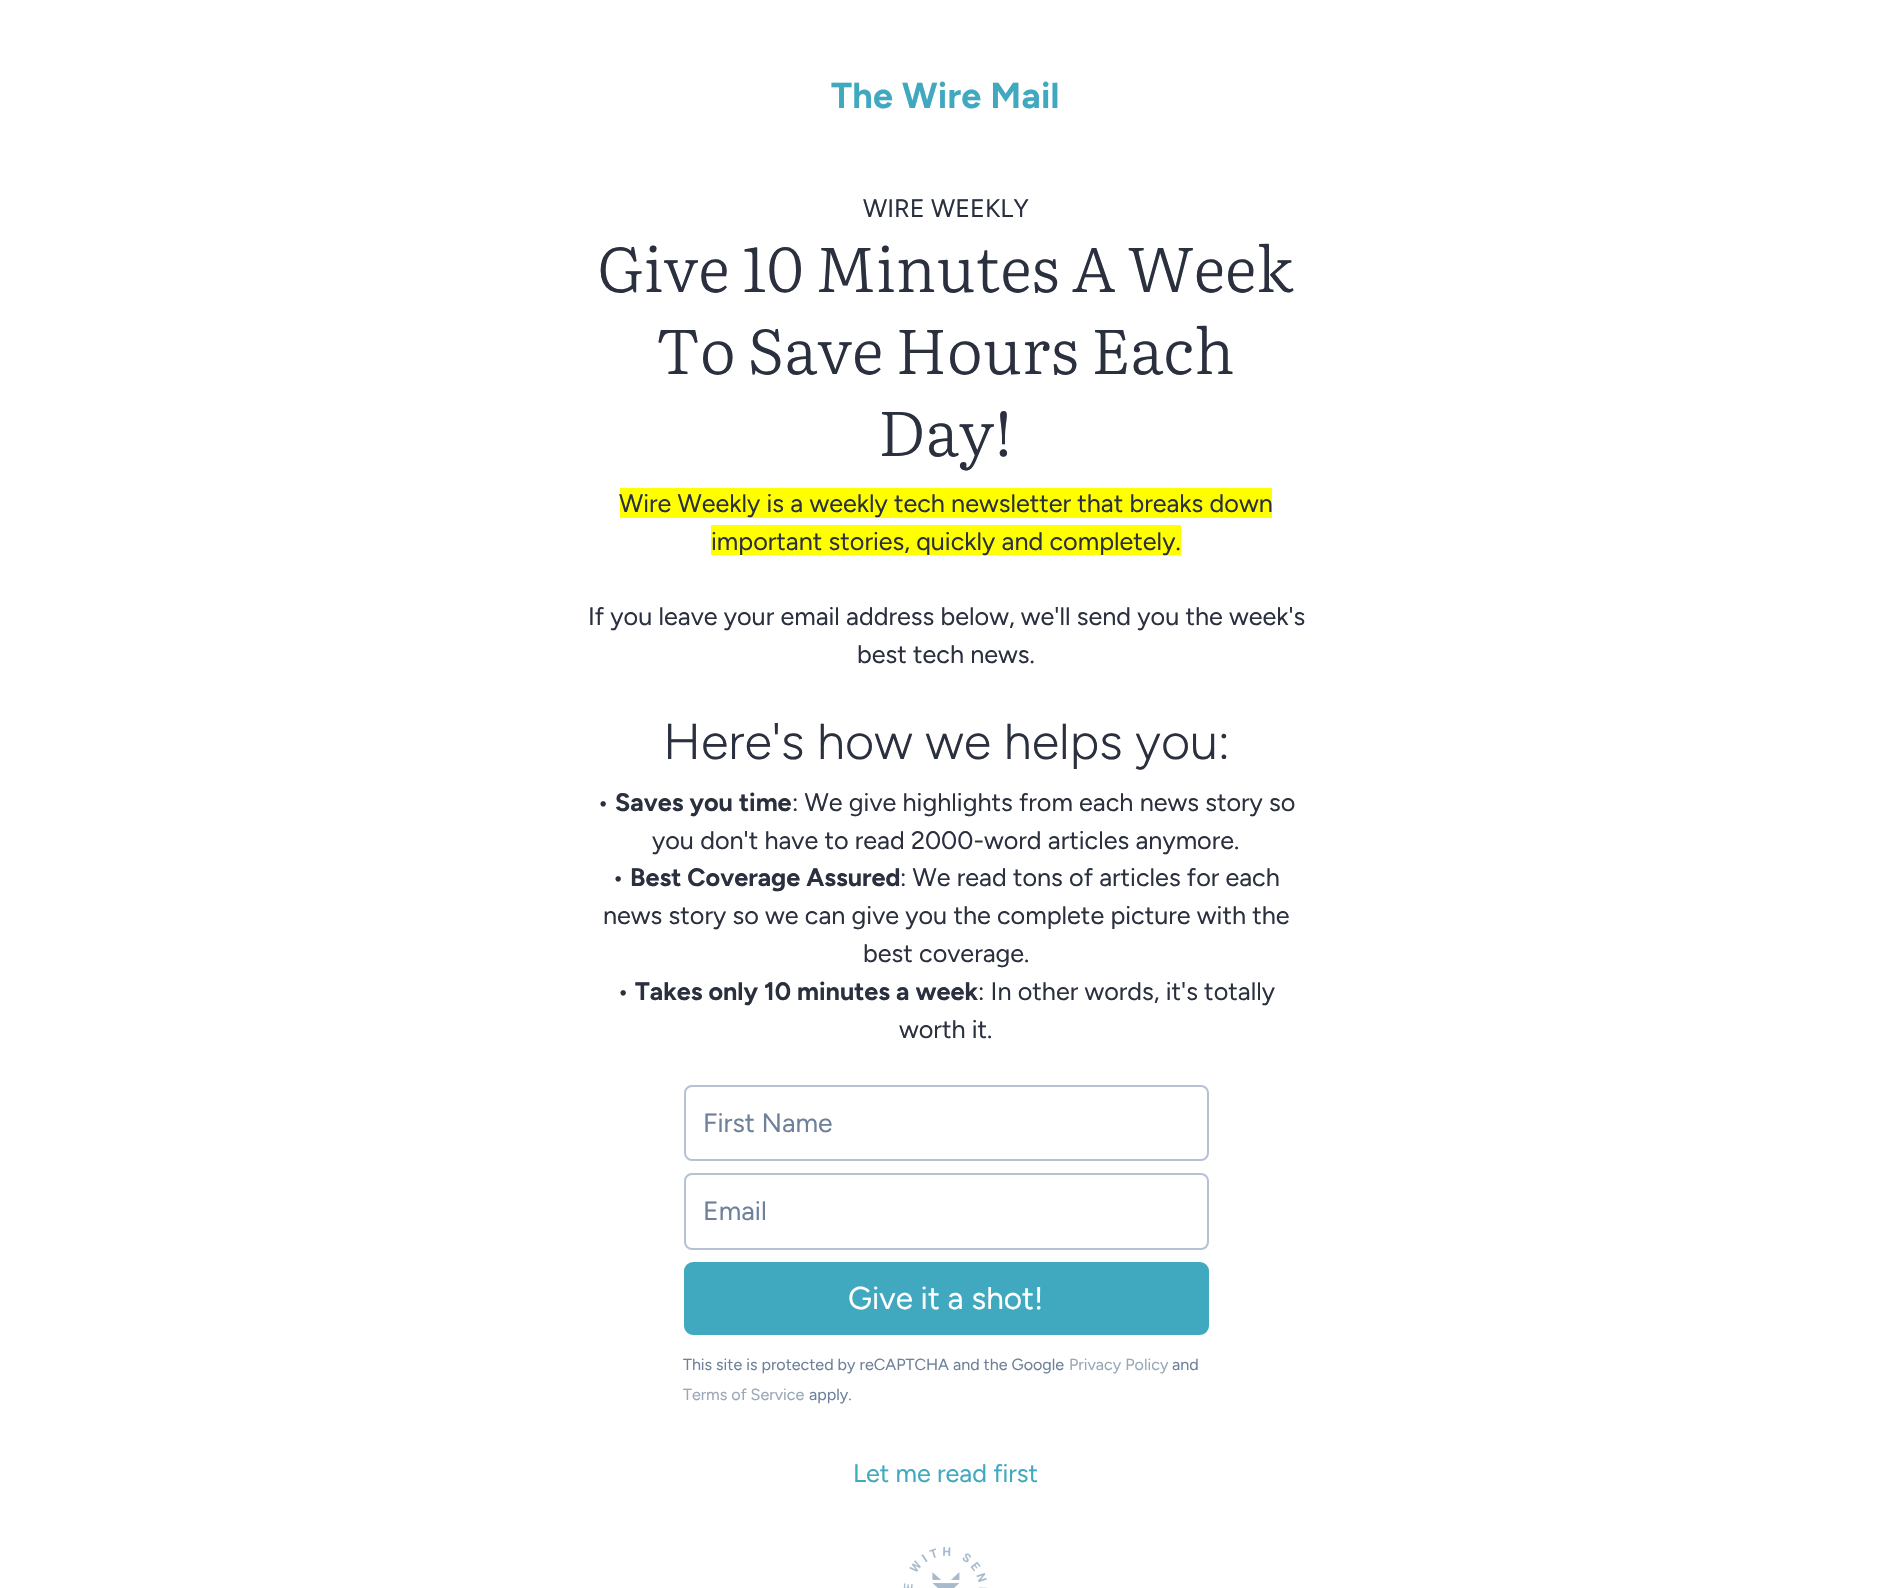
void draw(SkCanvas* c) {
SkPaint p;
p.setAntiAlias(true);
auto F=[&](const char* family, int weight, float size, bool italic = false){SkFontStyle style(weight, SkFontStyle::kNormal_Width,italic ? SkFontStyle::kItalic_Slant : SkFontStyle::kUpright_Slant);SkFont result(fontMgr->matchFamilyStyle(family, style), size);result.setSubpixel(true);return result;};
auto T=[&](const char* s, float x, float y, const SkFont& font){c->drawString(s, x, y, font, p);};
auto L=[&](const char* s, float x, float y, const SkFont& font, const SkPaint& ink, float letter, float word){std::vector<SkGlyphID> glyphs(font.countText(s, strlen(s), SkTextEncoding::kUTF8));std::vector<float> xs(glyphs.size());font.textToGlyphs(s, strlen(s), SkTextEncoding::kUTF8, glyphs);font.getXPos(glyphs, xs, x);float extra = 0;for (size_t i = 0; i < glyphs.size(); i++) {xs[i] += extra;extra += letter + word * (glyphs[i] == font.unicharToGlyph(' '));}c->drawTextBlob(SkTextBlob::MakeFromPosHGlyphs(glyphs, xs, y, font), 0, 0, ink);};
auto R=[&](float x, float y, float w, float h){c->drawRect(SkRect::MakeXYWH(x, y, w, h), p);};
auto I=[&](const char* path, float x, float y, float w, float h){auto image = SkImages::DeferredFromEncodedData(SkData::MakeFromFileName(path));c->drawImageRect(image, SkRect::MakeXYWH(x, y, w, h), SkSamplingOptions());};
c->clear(0xffffffff);
auto f1 = F("Figtree",700,36);
p.setColor(0xff40a8bf);
L("The Wire Mail",831,108,f1,p,.25,0);
auto f2 = F("Figtree",400,25.2);
p.setColor(0xff2b303f);
T("WIRE WEEKLY",863,217,f2);
auto f3 = F("Literata",300,63);
T("Give 10 Minutes A Week",597,292,f3);
T("To Save Hours Each",656,374,f3);
T("Day!",878,456,f3);
p.setColor(0xffffff00);
R(620,488,652,30);
p.setColor(0xff2b303f);
T("Wire Weekly is a weekly tech newsletter that breaks down",619,512,f2);
p.setColor(0xffffff00);
R(711,525,470,30);
p.setColor(0xff2b303f);
T("important stories, quickly and completely.",711,550,f2);
T("If you leave your email address below, we'll send you the week's",588,625,f2);
T("best tech news.",857,663,f2);
auto f4 = F("Figtree",300,50.4);
T("Here's how we helps you:",663,759,f4);
T("•",597,811,f2);
auto f5 = F("Figtree",700,25.2);
T("Saves you time",615,811,f5);
T(": We give highlights from each news story so",792,811,f2);
T("you don't have to read 2000-word articles anymore.",652,849,f2);
T("•",612,886,f2);
T("Best Coverage Assured",630,886,f5);
T(": We read tons of articles for each",900,886,f2);
T("news story so we can give you the complete picture with the",603,924,f2);
T("best coverage.",863,962,f2);
T("•",617,1000,f2);
T("Takes only 10 minutes a week",635,1000,f5);
T(": In other words, it's totally",978,1000,f2);
T("worth it.",899,1038,f2);
p.setStroke(true);
p.setStrokeWidth(2);
p.setColor(0xffb4c2d3);
c->drawRoundRect(SkRect::MakeXYWH(685,1086,523,74),7,7,p);
auto f6 = F("Figtree",400,26.5);
p.setStroke(false);
p.setColor(0xff6e819a);
T("First Name",703,1132,f6);
p.setStroke(true);
p.setColor(0xffb4c2d3);
c->drawRoundRect(SkRect::MakeXYWH(685,1174,523,75),7,7,p);
p.setStroke(false);
p.setColor(0xff6e819a);
T("Email",703,1220,f6);
p.setColor(0xff40a8bf);
c->drawRoundRect(SkRect::MakeXYWH(685,1263,523,71),8,8,p);
p.setStroke(true);
c->drawRoundRect(SkRect::MakeXYWH(685,1263,523,71),8,8,p);
auto f7 = F("Figtree",400,31.5);
p.setStroke(false);
p.setColor(0xffffffff);
T("Give it a shot!",848,1309,f7);
auto f8 = F("Figtree",400,16.1);
p.setColor(0xff6e819a);
T("This site is protected by reCAPTCHA and the Google",683,1370,f8);
p.setColor(0xff9aa7b8);
T("Privacy Policy",1069,1370,f8);
p.setColor(0xff6e819a);
T("and",1172,1370,f8);
p.setColor(0xff9aa7b8);
T("Terms of Service",683,1400,f8);
p.setColor(0xff6e819a);
T("apply.",809,1400,f8);
p.setColor(0xff40a8bf);
T("Let me read first",853,1482,f2);
I("1.png",903,1547,85,41);
}
